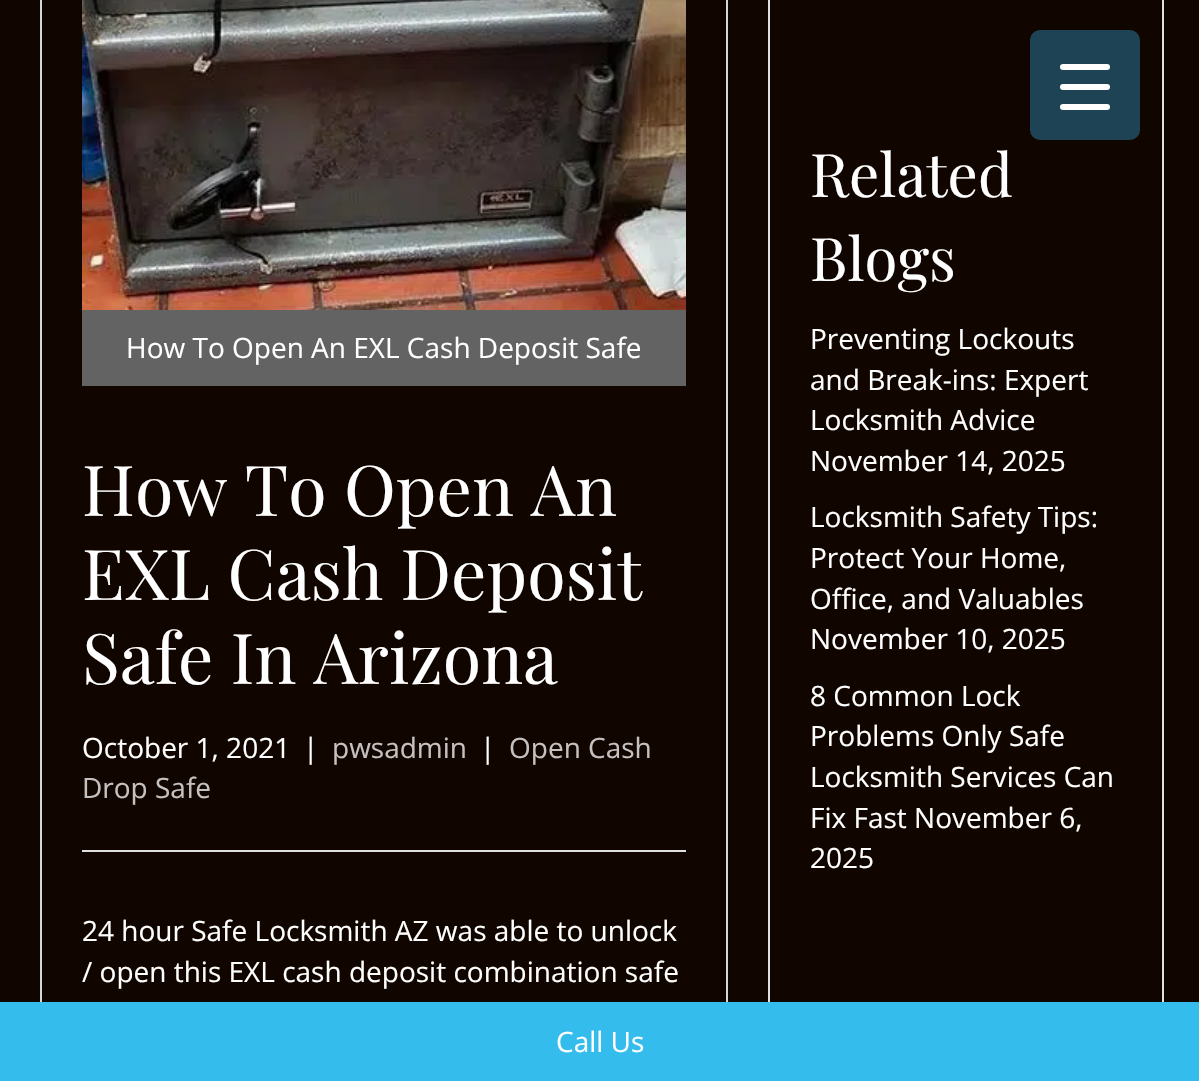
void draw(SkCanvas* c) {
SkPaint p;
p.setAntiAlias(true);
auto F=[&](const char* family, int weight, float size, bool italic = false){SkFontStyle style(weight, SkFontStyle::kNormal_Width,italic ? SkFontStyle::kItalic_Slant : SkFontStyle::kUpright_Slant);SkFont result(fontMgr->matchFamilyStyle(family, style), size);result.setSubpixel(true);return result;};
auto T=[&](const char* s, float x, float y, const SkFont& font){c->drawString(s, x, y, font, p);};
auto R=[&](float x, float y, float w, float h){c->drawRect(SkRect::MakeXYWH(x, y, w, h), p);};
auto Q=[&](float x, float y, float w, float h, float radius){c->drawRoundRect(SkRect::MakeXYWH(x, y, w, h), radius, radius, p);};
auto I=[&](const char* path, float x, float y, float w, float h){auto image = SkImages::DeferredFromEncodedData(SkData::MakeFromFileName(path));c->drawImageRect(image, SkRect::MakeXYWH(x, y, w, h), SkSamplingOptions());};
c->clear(0xff110500);
p.setStroke(true);
p.setStrokeWidth(2);
p.setColor(0xffe0e0e0);
c->drawRect(SkRect::MakeXYWH(769,-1,394,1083),p);
p.setStroke(false);
p.setColor(0xff1d4354);
Q(1030,30,110,110,10);
p.setColor(0xffffffff);
Q(1060,84,50,6,3);
Q(1060,64,50,6,3);
Q(1060,104,50,6,3);
p.setStroke(true);
p.setColor(0xffd6d6d6);
c->drawRect(SkRect::MakeXYWH(41,-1,686,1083),p);
I("1.png",82,0,604,310);
p.setStroke(false);
p.setColor(0xff636363);
R(82,310,604,76);
auto f1 = F("Open Sans",400,28);
p.setColor(0xffffffff);
T("How To Open An EXL Cash Deposit Safe",126,358,f1);
auto f2 = F("Playfair Display",400,70);
T("How To Open An",82,516,f2);
T("EXL Cash Deposit",82,600,f2);
T("Safe In Arizona",82,684,f2);
T("October 1, 2021",82,758,f1);
T("|",303,758,f1);
p.setColor(0xffc5c1c1);
T("pwsadmin",332,758,f1);
p.setColor(0xffffffff);
T("|",480,758,f1);
p.setColor(0xffc5c1c1);
T("Open Cash",509,758,f1);
T("Drop Safe",82,798,f1);
p.setColor(0xffe0e0e0);
R(82,850,604,2);
p.setColor(0xffffffff);
T("24 hour Safe Locksmith AZ was able to unlock",82,941,f1);
T("/ open this EXL cash deposit combination safe",82,982,f1);
auto f3 = F("Playfair Display",400,60);
T("Related",810,197,f3);
T("Blogs",810,281,f3);
T("Preventing Lockouts",810,349,f1);
T("and Break-ins: Expert",810,390,f1);
T("Locksmith Advice",810,430,f1);
T("November 14, 2025",810,471,f1);
T("Locksmith Safety Tips:",810,527,f1);
T("Protect Your Home,",810,568,f1);
T("Office, and Valuables",810,609,f1);
T("November 10, 2025",810,649,f1);
T("8 Common Lock",810,706,f1);
T("Problems Only Safe",810,746,f1);
T("Locksmith Services Can",810,787,f1);
T("Fix Fast November 6,",810,828,f1);
T("2025",810,868,f1);
p.setColor(0xff34bced);
R(0,1002,1199,79);
p.setColor(0xffffffff);
T("Call Us",556,1052,f1);
}
